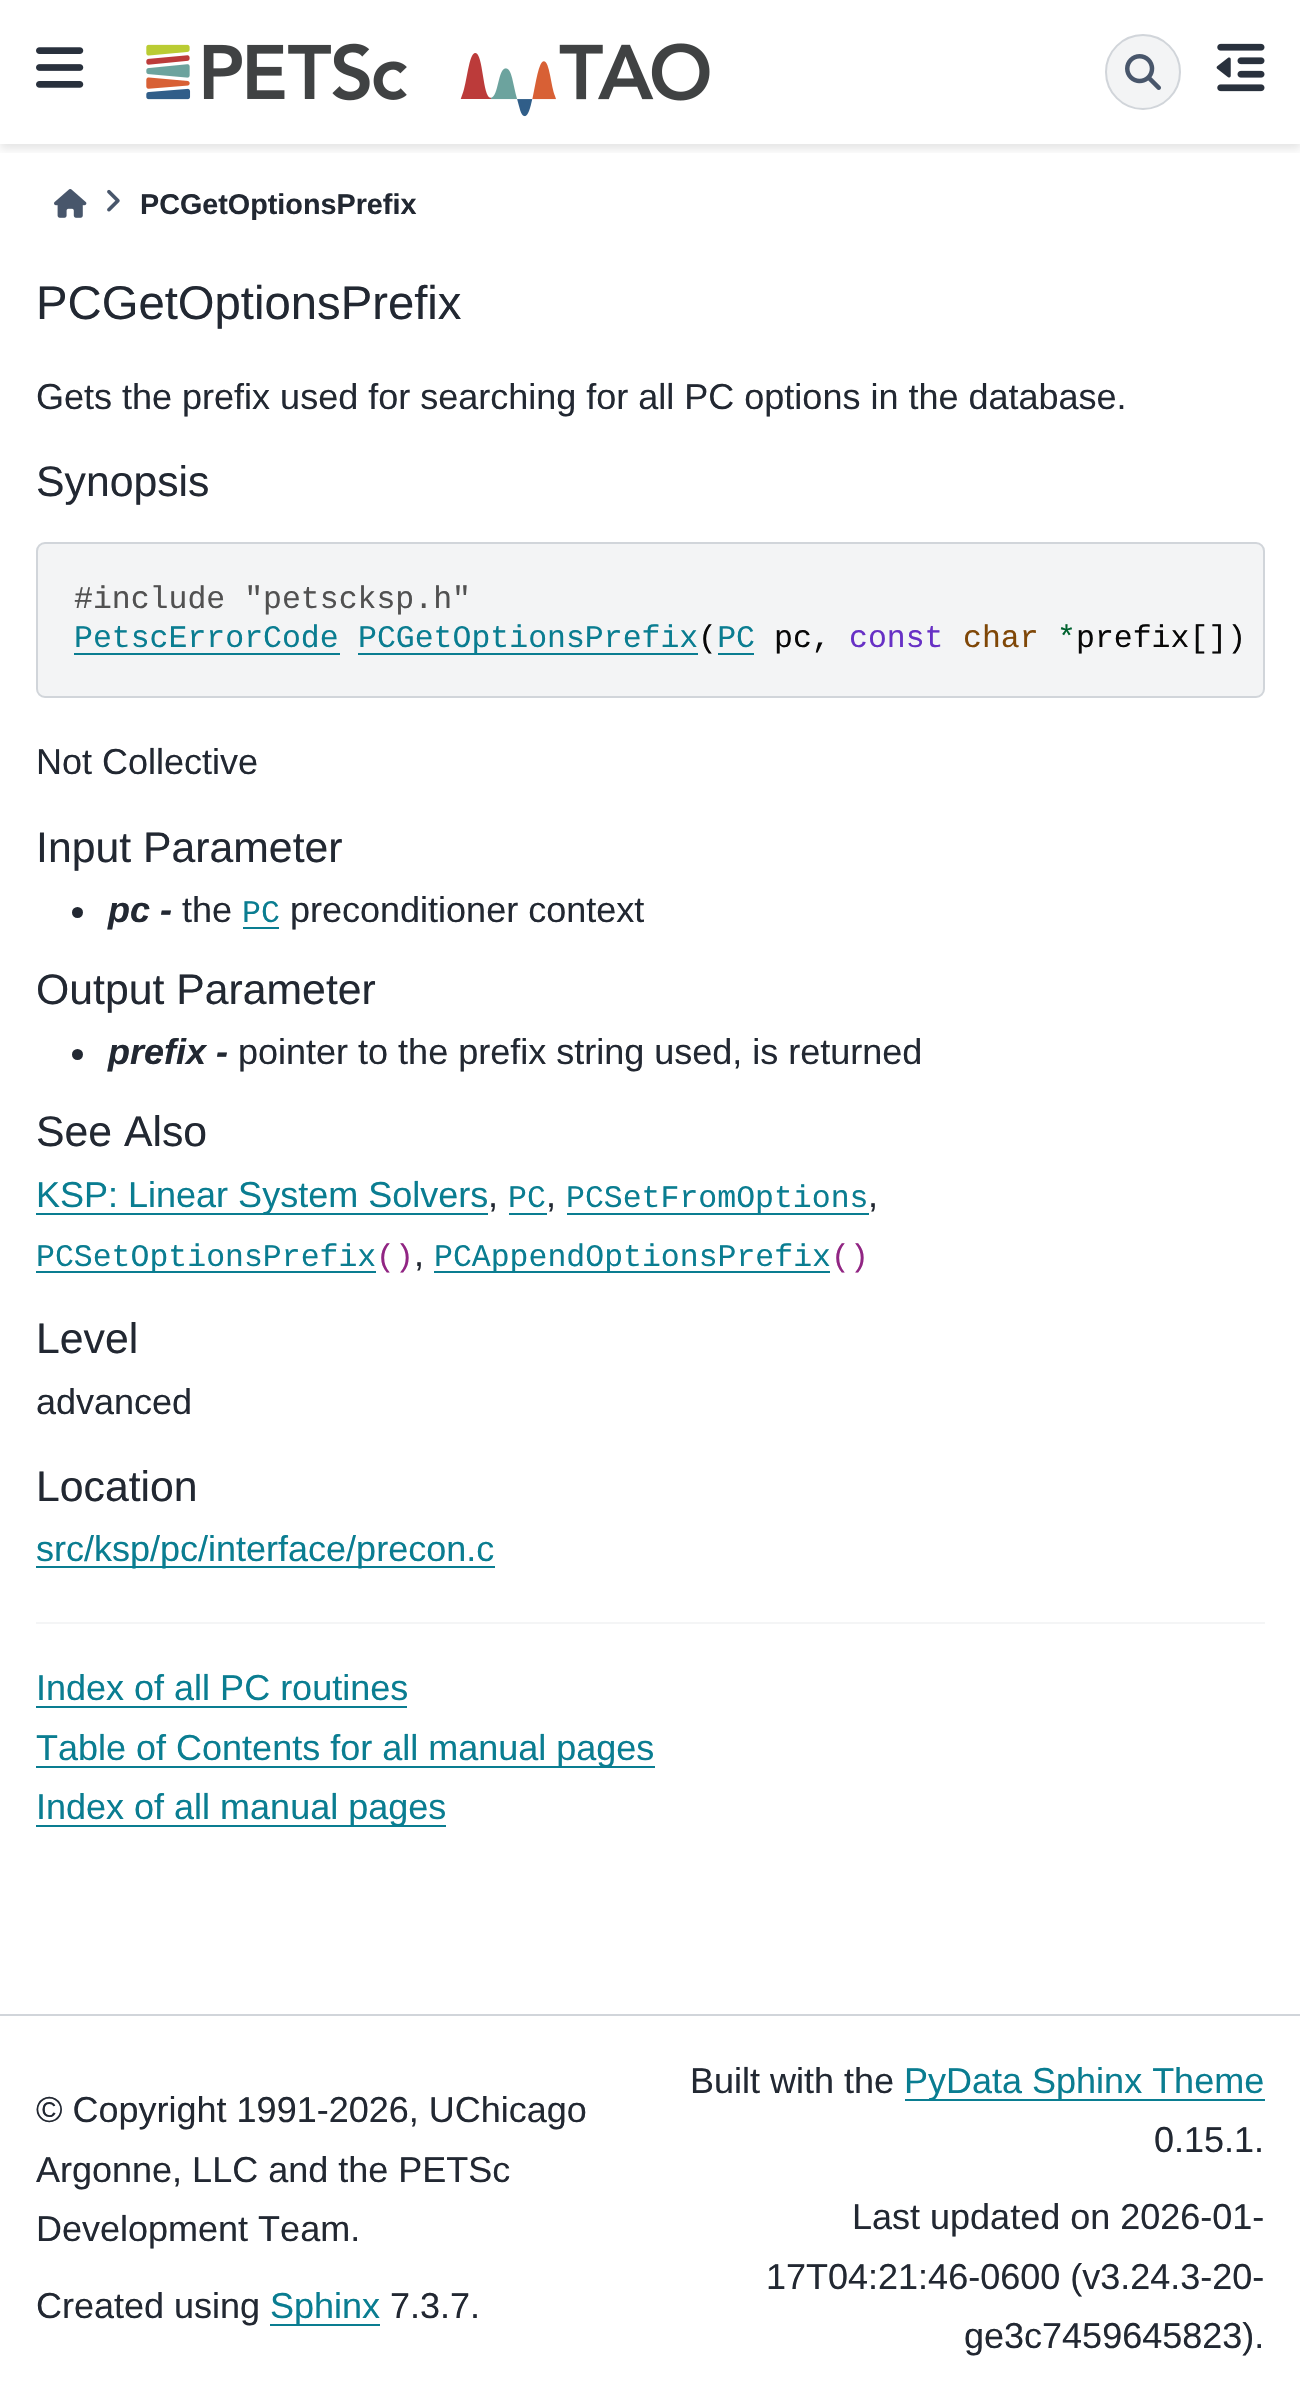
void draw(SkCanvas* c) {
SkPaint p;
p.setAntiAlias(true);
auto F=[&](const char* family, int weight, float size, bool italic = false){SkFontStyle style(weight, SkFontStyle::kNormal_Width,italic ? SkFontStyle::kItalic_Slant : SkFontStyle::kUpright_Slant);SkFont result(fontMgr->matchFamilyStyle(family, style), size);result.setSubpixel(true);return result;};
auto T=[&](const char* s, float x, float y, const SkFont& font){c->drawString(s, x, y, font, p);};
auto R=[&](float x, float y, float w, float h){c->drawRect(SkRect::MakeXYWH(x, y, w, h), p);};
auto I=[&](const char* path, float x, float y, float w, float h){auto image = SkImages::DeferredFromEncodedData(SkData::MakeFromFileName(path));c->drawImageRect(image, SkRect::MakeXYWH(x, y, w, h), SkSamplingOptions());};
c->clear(0xffffffff);
c->save();
c->clipRect(SkRect::MakeXYWH(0,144,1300,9));
p.setColor(0x1a000000);
p.setMaskFilter(SkMaskFilter::MakeBlur(kNormal_SkBlurStyle, 4.5));
c->drawRect(SkRect::MakeXYWH(0,5,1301,144),p);
p.setMaskFilter(nullptr);
c->restore();
I("1.png",36,47,48,41);
I("2.png",146,43,564,74);
p.setColor(0xfff3f4f5);
c->drawCircle(1143,72,37,p);
p.setStroke(true);
p.setStrokeWidth(2);
p.setColor(0xffd1d5da);
c->drawCircle(1143,72,37,p);
I("3.png",1125,54,36,36);
I("4.png",1216,43,49,49);
I("5.png",54,189,33,29);
I("6.png",107,189,13,23);
auto f1 = F("Liberation Sans",700,28.75);
p.setStroke(false);
p.setColor(0xff222832);
T("PCGetOptionsPrefix",140,214,f1);
auto f2 = F("Liberation Sans",400,47.25);
T("PCGetOptionsPrefix",36,319,f2);
auto f3 = F("Liberation Sans",400,36);
T("Gets the prefix used for searching for all PC options in the database.",36,409,f3);
auto f4 = F("Liberation Sans",400,42.75);
T("Synopsis",36,496,f4);
p.setColor(0xfff3f4f5);
c->drawRoundRect(SkRect::MakeXYWH(37,543,1227,154),8,8,p);
p.setStroke(true);
p.setColor(0xffd1d5da);
c->drawRoundRect(SkRect::MakeXYWH(37,543,1227,154),8,8,p);
auto f5 = F("Liberation Mono",400,31.5);
p.setStroke(false);
p.setColor(0xff515151);
T("#include \"petscksp.h\"",74,608,f5);
p.setColor(0xff0a7d91);
T("PetscErrorCode",74,647,f5);
R(74,653,266,2);
R(358,653,340,2);
T("PCGetOptionsPrefix PC",358,647,f5);
p.setColor(0xff080808);
T("(",698,647,f5);
p.setColor(0xff0a7d91);
R(718,653,36,2);
p.setColor(0xff080808);
T("pc,",774,647,f5);
p.setColor(0xff6730c5);
T("const",849,647,f5);
p.setColor(0xff7f4707);
T("char",963,647,f5);
p.setColor(0xff00622f);
T("*",1057,647,f5);
p.setColor(0xff080808);
T("prefix[])",1076,647,f5);
p.setColor(0xff222832);
T("Not Collective",36,774,f3);
T("Input Parameter",36,862,f4);
c->drawCircle(77.5,912.5,5.5,p);
auto f6 = F("Liberation Sans",700,36,true);
T("pc -",108,922,f6);
T("the",182,922,f3);
p.setColor(0xff0a7d91);
T("PC",242,922,f5);
R(243,927,36,2);
p.setColor(0xff222832);
T("preconditioner context",290,922,f3);
T("Output Parameter",36,1004,f4);
c->drawCircle(77.5,1054.5,5.5,p);
T("prefix -",108,1064,f6);
T("pointer to the prefix string used, is returned",238,1064,f3);
T("See Also",36,1146,f4);
p.setColor(0xff0a7d91);
R(36,1213,452,2);
T("KSP: Linear System Solvers",36,1207,f3);
p.setColor(0xff222832);
T(",",488,1207,f3);
p.setColor(0xff0a7d91);
T("PC",508,1207,f5);
R(509,1213,38,2);
p.setColor(0xff222832);
T(",",546,1207,f3);
p.setColor(0xff0a7d91);
R(567,1213,302,2);
T("PCSetFromOptions",566,1207,f5);
p.setColor(0xff222832);
T(",",868,1207,f3);
p.setColor(0xff0a7d91);
R(36,1271,340,2);
T("PCSetOptionsPrefix",36,1266,f5);
p.setColor(0xff912583);
T("()",376,1266,f5);
p.setColor(0xff222832);
T(",",414,1266,f3);
p.setColor(0xff0a7d91);
R(434,1271,396,2);
T("PCAppendOptionsPrefix",434,1266,f5);
p.setColor(0xff912583);
T("()",831,1266,f5);
p.setColor(0xff222832);
T("Level",36,1353,f4);
T("advanced",36,1414,f3);
T("Location",36,1501,f4);
p.setColor(0xff0a7d91);
R(36,1566,459,2);
T("src/ksp/pc/interface/precon.c",36,1561,f3);
p.setColor(0xfff4f5f6);
R(36,1622,1229,2);
p.setColor(0xff0a7d91);
T("Index of all PC routines",36,1700,f3);
R(36,1706,371,2);
R(36,1766,619,2);
T("Table of Contents for all manual pages",36,1760,f3);
R(36,1825,410,2);
T("Index of all manual pages",36,1819,f3);
p.setColor(0xffd1d5da);
R(0,2014,1300,2);
p.setColor(0xff222832);
T("© Copyright 1991-2026, UChicago",36,2122,f3);
T("Argonne, LLC and the PETSc",36,2182,f3);
T("Development Team.",36,2241,f3);
T("Created using",36,2318,f3);
p.setColor(0xff0a7d91);
R(270,2324,110,2);
T("Sphinx",270,2318,f3);
p.setColor(0xff222832);
T("7.3.7.",390,2318,f3);
T("Built with the",690,2093,f3);
p.setColor(0xff0a7d91);
R(905,2099,360,2);
T("PyData Sphinx Theme",904,2093,f3);
p.setColor(0xff222832);
T("0.15.1.",1154,2152,f3);
T("Last updated on 2026-01-",852,2229,f3);
T("17T04:21:46-0600 (v3.24.3-20-",766,2289,f3);
T("ge3c7459645823).",964,2348,f3);
}
